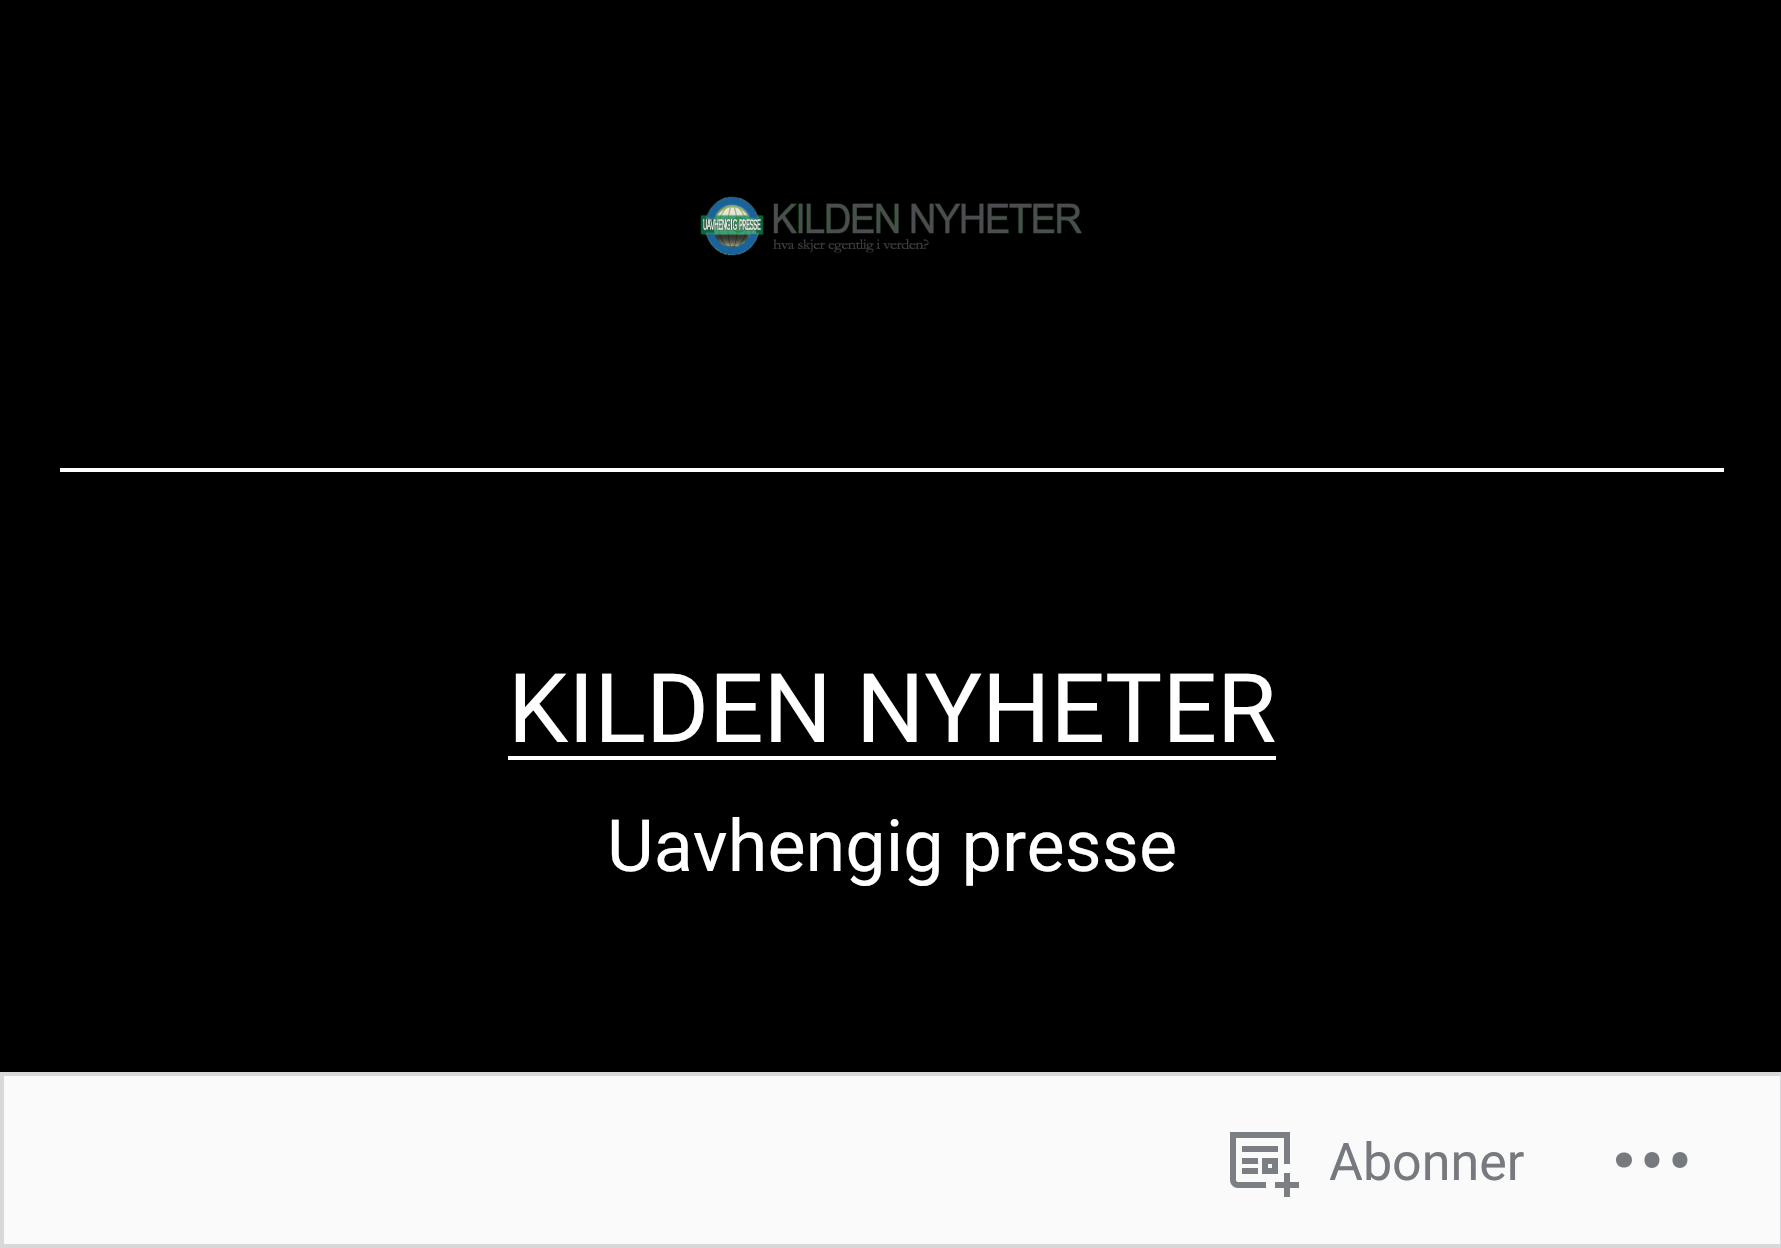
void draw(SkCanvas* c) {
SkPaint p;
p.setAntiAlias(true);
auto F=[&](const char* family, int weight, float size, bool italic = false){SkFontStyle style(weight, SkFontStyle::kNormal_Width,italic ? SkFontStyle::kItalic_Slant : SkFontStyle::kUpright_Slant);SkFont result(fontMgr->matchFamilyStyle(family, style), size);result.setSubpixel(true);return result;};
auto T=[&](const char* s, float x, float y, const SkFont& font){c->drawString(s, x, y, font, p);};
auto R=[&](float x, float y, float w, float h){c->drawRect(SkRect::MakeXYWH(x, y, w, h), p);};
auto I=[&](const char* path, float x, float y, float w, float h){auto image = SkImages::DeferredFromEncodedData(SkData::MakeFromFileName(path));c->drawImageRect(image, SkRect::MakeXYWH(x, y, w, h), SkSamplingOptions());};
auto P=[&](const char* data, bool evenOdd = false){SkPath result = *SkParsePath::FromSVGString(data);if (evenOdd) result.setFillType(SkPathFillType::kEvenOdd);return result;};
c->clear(0xff000000);
p.setColor(0xffffffff);
R(60,468,1664,4);
I("1.png",700,196,382,60);
auto f1 = F("Roboto",400,96);
T("KILDEN NYHETER",508,742,f1);
R(508,756,768,4);
auto f2 = F("Roboto",400,72);
T("Uavhengig presse",607,871,f2);
p.setColor(0xfffafafa);
c->drawRect(SkRect::MakeXYWH(2,1074,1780,172),p);
p.setStroke(true);
p.setStrokeWidth(4);
p.setColor(0xffd8d8da);
c->drawRect(SkRect::MakeXYWH(2,1074,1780,172),p);
I("2.png",1230,1132,69,65);
auto f3 = F("Roboto",400,52);
p.setStroke(false);
p.setColor(0xff767a7f);
T("Abonner",1329,1180,f3);
c->drawPath(P("M1632 1160c0 10-16 10-16 0c0-10 16-10 16 0zm48-8c-10 0-10 16 0 16c10 0 10-16 0-16zm-28 0c-10 0-10 16 0 16c10 0 10-16 0-16z"),p);
}
